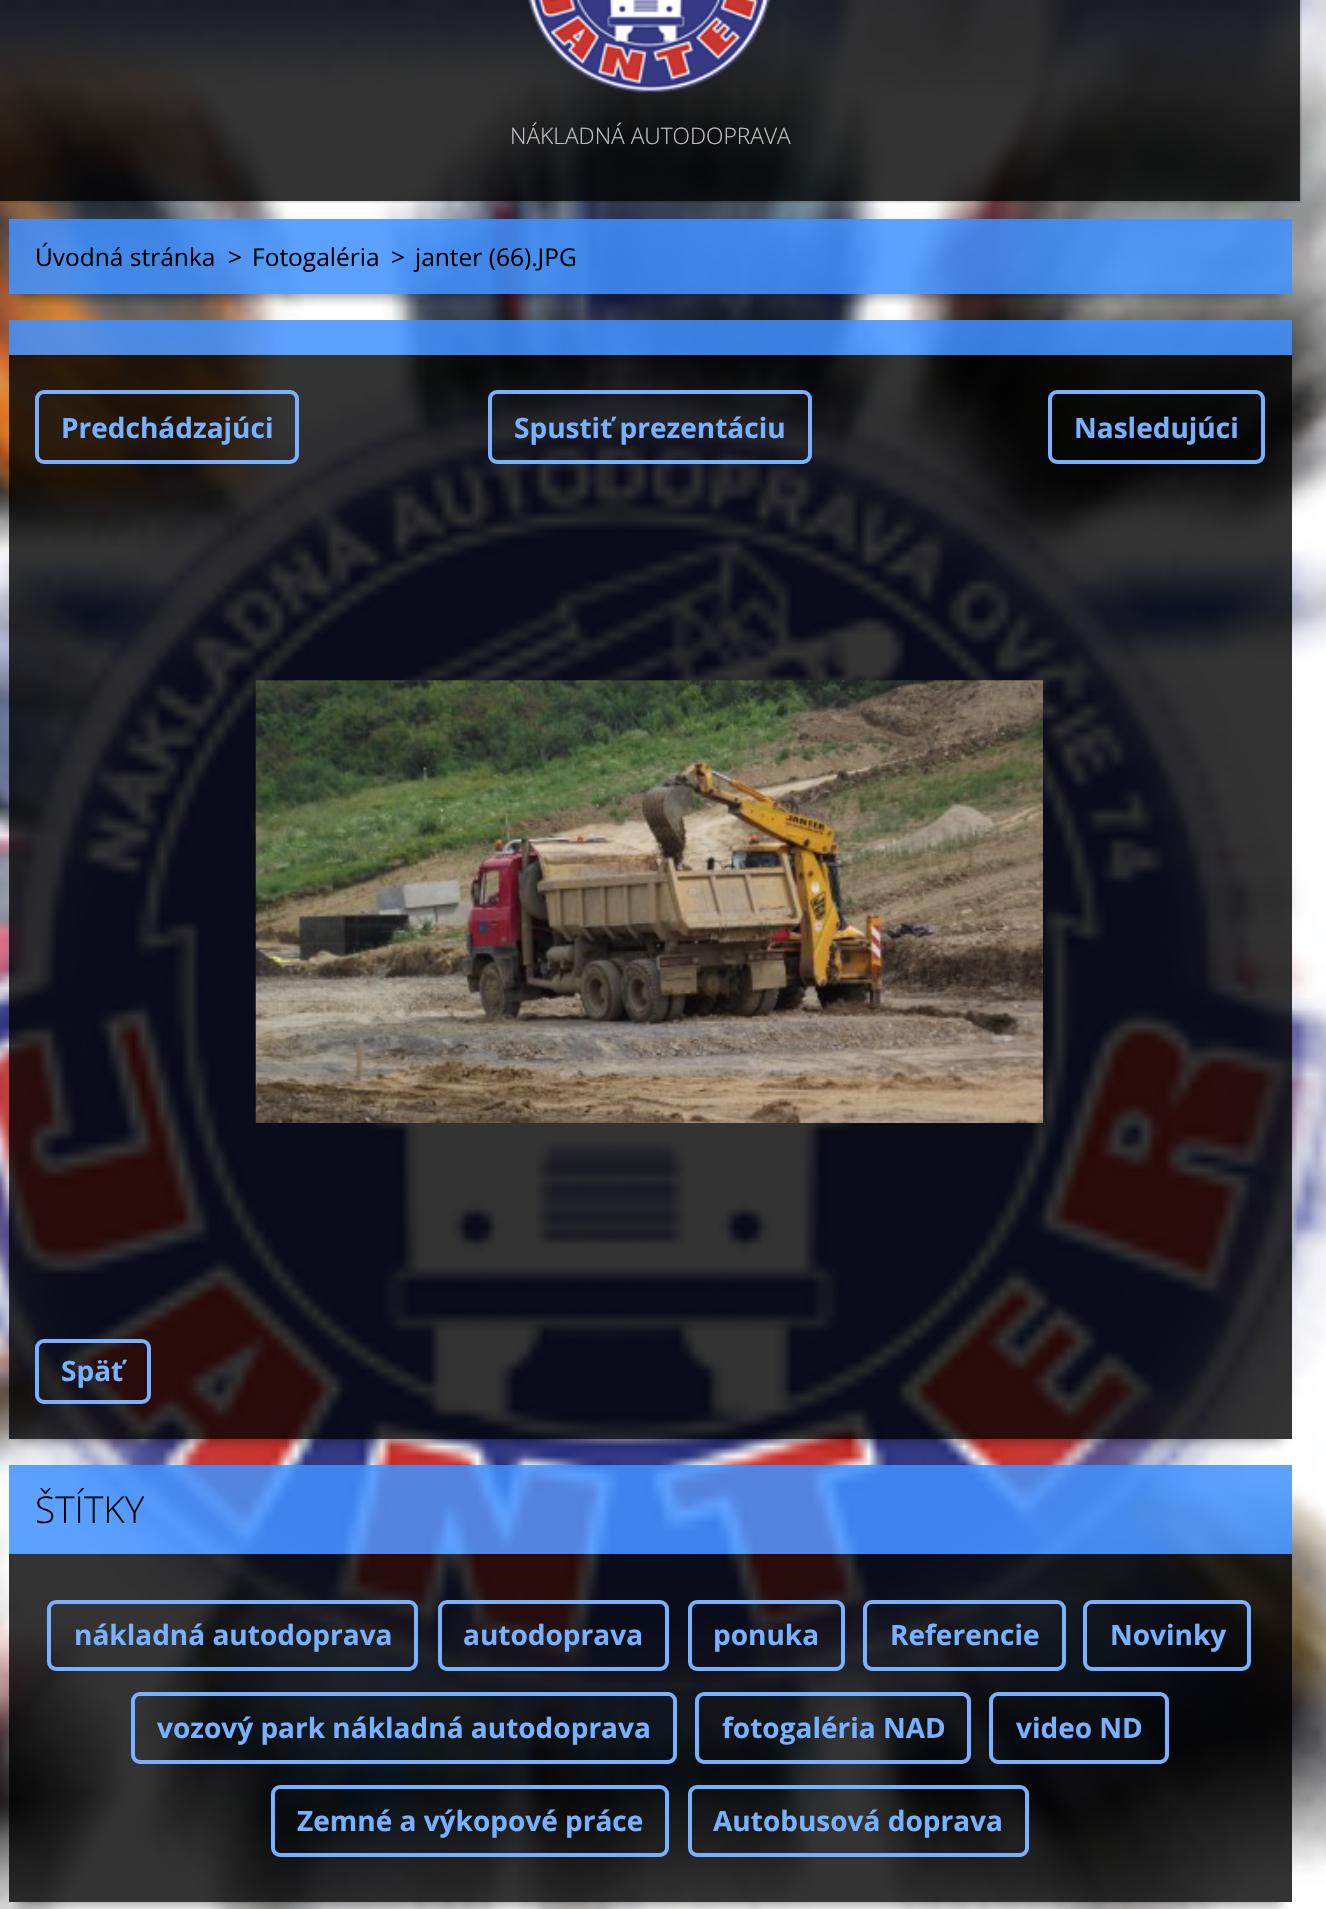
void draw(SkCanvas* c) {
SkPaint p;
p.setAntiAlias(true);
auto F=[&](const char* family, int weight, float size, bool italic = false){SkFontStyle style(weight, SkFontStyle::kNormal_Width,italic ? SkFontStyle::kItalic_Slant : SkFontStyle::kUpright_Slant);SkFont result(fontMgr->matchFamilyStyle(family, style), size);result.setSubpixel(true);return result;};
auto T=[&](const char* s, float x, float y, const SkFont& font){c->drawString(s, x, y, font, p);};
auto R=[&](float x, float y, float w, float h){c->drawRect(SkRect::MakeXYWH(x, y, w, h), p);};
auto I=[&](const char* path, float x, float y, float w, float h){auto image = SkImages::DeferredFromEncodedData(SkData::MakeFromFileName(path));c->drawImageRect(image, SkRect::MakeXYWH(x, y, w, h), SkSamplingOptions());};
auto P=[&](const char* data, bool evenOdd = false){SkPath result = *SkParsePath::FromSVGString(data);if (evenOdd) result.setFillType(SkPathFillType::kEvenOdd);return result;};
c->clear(0xffffffff);
I("1.png",0,0,1326,1909);
p.setStroke(true);
p.setStrokeWidth(2);
p.setColor(0x1a000000);
c->drawRect(SkRect::MakeXYWH(-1,-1,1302,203),p);
p.setStroke(false);
p.setColor(0xcc000000);
R(0,0,1300,114);
I("2.png",528,0,243,93);
R(0,114,1300,87);
auto f1 = F("Open Sans",300,22.75);
p.setColor(0xffc2c2c2);
T("NÁKLADNÁ AUTODOPRAVA",510,144,f1);
c->save();
c->clipRect(SkRect::MakeXYWH(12,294,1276,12));
p.setColor(0x59000000);
p.setMaskFilter(SkMaskFilter::MakeBlur(kNormal_SkBlurStyle, 5));
c->drawRect(SkRect::MakeXYWH(19,243,1262,55),p);
p.setMaskFilter(nullptr);
c->restore();
p.setColor(0xd93f91ff);
R(9,219,1283,75);
auto f2 = F("Open Sans",400,24.5);
p.setColor(0xff000000);
T("Úvodná stránka",35,266,f2);
T(">",228,266,f2);
T("Fotogaléria",252,266,f2);
T(">",391,266,f2);
T("janter (66).JPG",415,266,f2);
c->save();
c->clipPath(P("M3 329h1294v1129h-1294zm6-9h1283v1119h-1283z",true),true);
p.setColor(0x59000000);
p.setMaskFilter(SkMaskFilter::MakeBlur(kNormal_SkBlurStyle, 5));
c->drawRect(SkRect::MakeXYWH(19,345,1262,1097),p);
p.setMaskFilter(nullptr);
c->restore();
p.setColor(0xd93f91ff);
R(9,320,1283,35);
p.setColor(0xcc000000);
R(9,355,1283,984);
p.setStroke(true);
p.setStrokeWidth(4);
p.setColor(0xff77b1ff);
c->drawRoundRect(SkRect::MakeXYWH(37,392,260,70),7,7,p);
auto f3 = F("Open Sans",700,28);
p.setStroke(false);
T("Predchádzajúci",61,438,f3);
p.setStroke(true);
c->drawRoundRect(SkRect::MakeXYWH(490,392,320,70),7,7,p);
p.setStroke(false);
T("Spustiť prezentáciu",514,438,f3);
p.setStroke(true);
c->drawRoundRect(SkRect::MakeXYWH(1050,392,213,70),7,7,p);
p.setStroke(false);
T("Nasledujúci",1074,438,f3);
I("3.png",255,680,788,443);
p.setColor(0xcc000000);
R(9,1339,1283,100);
p.setStroke(true);
p.setColor(0xff77b1ff);
c->drawRoundRect(SkRect::MakeXYWH(37,1341,112,61),7,7,p);
p.setStroke(false);
T("Späť",61,1381,f3);
c->save();
c->clipRect(SkRect::MakeXYWH(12,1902,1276,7));
p.setColor(0x59000000);
p.setMaskFilter(SkMaskFilter::MakeBlur(kNormal_SkBlurStyle, 5));
c->drawRect(SkRect::MakeXYWH(19,1489,1262,417),p);
p.setMaskFilter(nullptr);
c->restore();
p.setColor(0xd93f91ff);
R(9,1465,1283,89);
auto f4 = F("Open Sans",300,37);
p.setColor(0xff000000);
T("ŠTÍTKY",35,1523,f4);
p.setColor(0xcc000000);
R(9,1554,1283,313);
p.setStroke(true);
p.setColor(0xff77b1ff);
c->drawRoundRect(SkRect::MakeXYWH(49,1602,367,67),7,7,p);
p.setStroke(false);
T("nákladná autodoprava",74,1645,f3);
p.setStroke(true);
c->drawRoundRect(SkRect::MakeXYWH(440,1602,227,67),7,7,p);
p.setStroke(false);
T("autodoprava",463,1645,f3);
p.setStroke(true);
c->drawRoundRect(SkRect::MakeXYWH(690,1602,153,67),7,7,p);
p.setStroke(false);
T("ponuka",713,1645,f3);
p.setStroke(true);
c->drawRoundRect(SkRect::MakeXYWH(865,1602,199,67),7,7,p);
p.setStroke(false);
T("Referencie",890,1645,f3);
p.setStroke(true);
c->drawRoundRect(SkRect::MakeXYWH(1085,1602,164,67),7,7,p);
p.setStroke(false);
T("Novinky",1110,1645,f3);
p.setStroke(true);
c->drawRoundRect(SkRect::MakeXYWH(133,1694,542,68),7,7,p);
p.setStroke(false);
T("vozový park nákladná autodoprava",157,1738,f3);
p.setStroke(true);
c->drawRoundRect(SkRect::MakeXYWH(697,1694,272,68),7,7,p);
p.setStroke(false);
T("fotogaléria NAD",722,1738,f3);
p.setStroke(true);
c->drawRoundRect(SkRect::MakeXYWH(991,1694,176,68),7,7,p);
p.setStroke(false);
T("video ND",1016,1738,f3);
p.setStroke(true);
c->drawRoundRect(SkRect::MakeXYWH(273,1787,394,68),7,7,p);
p.setStroke(false);
T("Zemné a výkopové práce",297,1831,f3);
p.setStroke(true);
c->drawRoundRect(SkRect::MakeXYWH(690,1787,337,68),7,7,p);
p.setStroke(false);
T("Autobusová doprava",713,1831,f3);
p.setColor(0xcc000000);
R(9,1867,1283,35);
}
